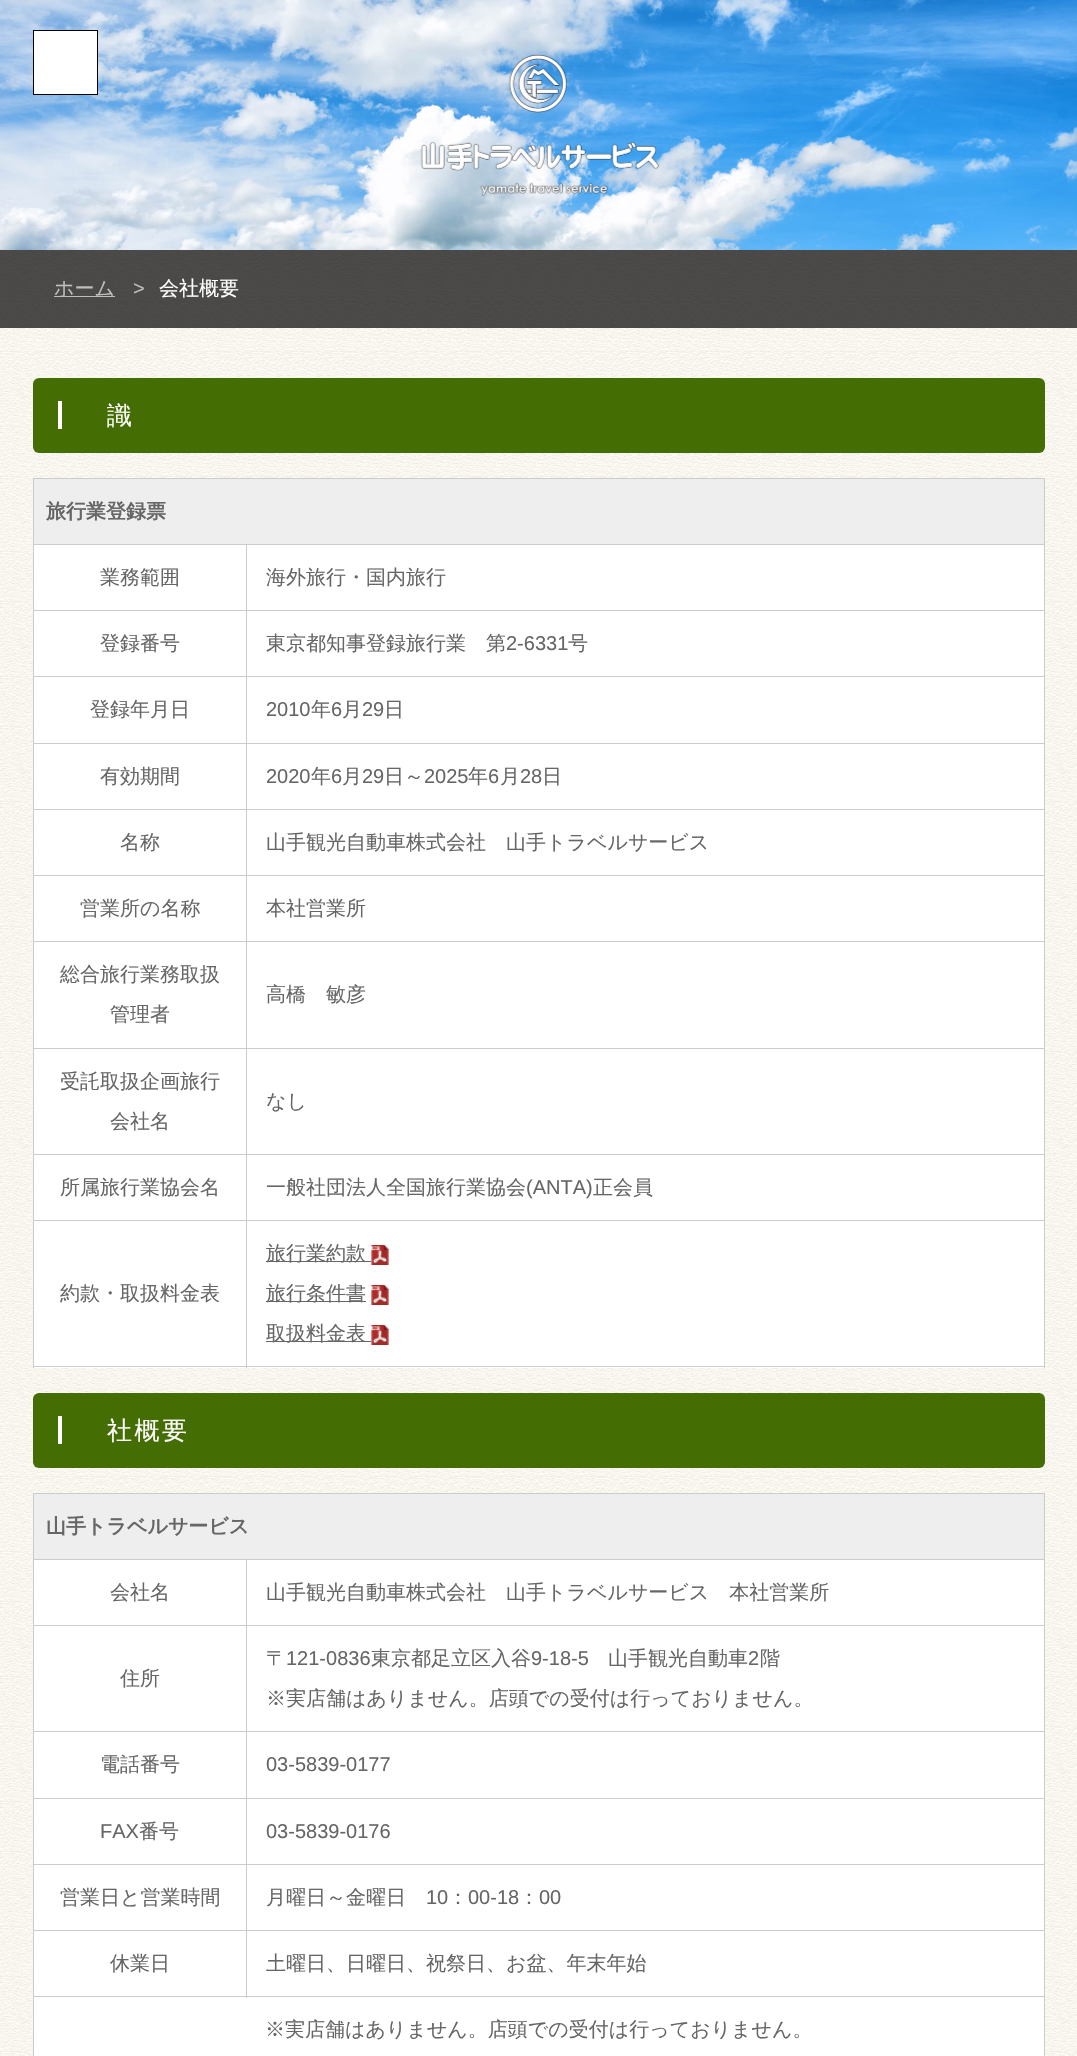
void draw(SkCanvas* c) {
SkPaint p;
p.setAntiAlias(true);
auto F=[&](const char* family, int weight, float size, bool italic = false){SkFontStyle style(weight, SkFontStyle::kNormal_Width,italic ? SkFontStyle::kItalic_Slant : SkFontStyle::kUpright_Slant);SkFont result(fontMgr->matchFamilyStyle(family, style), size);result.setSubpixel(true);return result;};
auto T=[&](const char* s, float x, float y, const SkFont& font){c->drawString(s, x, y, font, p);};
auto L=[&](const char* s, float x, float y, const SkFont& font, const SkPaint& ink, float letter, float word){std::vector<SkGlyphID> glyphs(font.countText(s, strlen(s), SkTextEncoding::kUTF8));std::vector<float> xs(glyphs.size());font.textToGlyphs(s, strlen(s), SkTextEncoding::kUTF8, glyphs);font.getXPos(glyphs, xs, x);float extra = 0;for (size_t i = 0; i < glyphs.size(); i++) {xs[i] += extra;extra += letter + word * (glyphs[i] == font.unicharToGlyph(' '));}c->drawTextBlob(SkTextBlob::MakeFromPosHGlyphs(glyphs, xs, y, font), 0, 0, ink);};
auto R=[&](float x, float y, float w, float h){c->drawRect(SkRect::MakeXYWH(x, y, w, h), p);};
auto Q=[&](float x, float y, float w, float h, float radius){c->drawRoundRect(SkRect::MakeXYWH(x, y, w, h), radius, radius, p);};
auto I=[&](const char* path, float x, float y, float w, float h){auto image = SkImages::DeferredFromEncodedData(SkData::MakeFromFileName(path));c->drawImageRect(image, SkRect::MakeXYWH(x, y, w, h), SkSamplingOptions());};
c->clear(0xffffffff);
I("1.png",0,250,1077,1806);
I("2.png",0,0,1077,250);
I("3.png",420,54,239,142);
p.setColor(0xffffffff);
c->drawRect(SkRect::MakeXYWH(33.5,30.5,64,64),p);
p.setStroke(true);
p.setStrokeWidth(1);
p.setColor(0xff000000);
c->drawRect(SkRect::MakeXYWH(33.5,30.5,64,64),p);
p.setStroke(false);
p.setColor(0xb3000000);
R(0,250,1077,78);
p.setColor(0xffbebebe);
R(54,296,61,1);
auto f1 = F("WenQuanYi Zen Hei",500,20);
T("ホーム",54,295,f1);
auto f2 = F("Liberation Sans",400,20);
T(">",133,295,f2);
p.setColor(0xffffffff);
T("会社概要",159,295,f1);
p.setColor(0xff446d04);
Q(33,378,1012,75,6);
auto f3 = F("Noto Sans",400,25);
p.setColor(0xffffffff);
L("標",80,424,f3,p,2.5,0);
R(58,401,4,28);
auto f4 = F("WenQuanYi Zen Hei",500,25);
L("識",107,424,f4,p,2.5,0);
R(34,545,1010,823);
p.setColor(0xffcccccc);
R(33,478,1012,1);
R(1044,478,1,890);
R(33,1366,1012,1);
R(33,478,1,890);
p.setColor(0xffeeeeee);
R(34,479,1010,65);
auto f5 = F("WenQuanYi Zen Hei",700,20);
p.setColor(0xff666666);
T("旅行業登録票",46,518,f5);
p.setColor(0xffcccccc);
R(246,544,799,1);
R(246,610,799,1);
R(246,676,799,1);
R(246,743,799,1);
R(246,809,799,1);
R(246,875,799,1);
R(246,941,799,1);
R(246,1048,799,1);
R(246,1154,799,1);
R(246,1220,799,1);
R(246,1220,1,148);
R(33,1220,215,1);
R(246,1154,1,67);
R(33,1154,215,1);
R(246,1048,1,107);
R(33,1048,215,1);
R(246,941,1,108);
R(33,941,215,1);
R(246,875,1,68);
R(33,875,215,1);
R(246,809,1,67);
R(33,809,215,1);
R(246,743,1,67);
R(33,743,215,1);
R(246,676,1,68);
R(33,676,215,1);
R(246,610,1,68);
R(33,610,215,1);
R(246,544,1,67);
R(33,544,215,1);
p.setColor(0xff666666);
T("業務範囲",100,584,f1);
T("海外旅行・国内旅行",266,584,f1);
T("登録番号",100,650,f1);
T("東京都知事登録旅行業　第",266,650,f1);
T("2-6331",506,650,f2);
T("号",568,650,f1);
T("登録年月日",90,716,f1);
T("2010",266,716,f2);
T("年",311,716,f1);
T("6",331,716,f2);
T("月",342,716,f1);
T("29",362,716,f2);
T("日",384,716,f1);
T("有効期間",100,783,f1);
T("2020",266,783,f2);
T("年",311,783,f1);
T("6",331,783,f2);
T("月",342,783,f1);
T("29",362,783,f2);
T("日～",384,783,f1);
T("2025",424,783,f2);
T("年",468,783,f1);
T("6",488,783,f2);
T("月",500,783,f1);
T("28",520,783,f2);
T("日",542,783,f1);
T("名称",120,849,f1);
T("山手観光自動車株式会社　山手トラベルサービス",266,849,f1);
T("営業所の名称",80,915,f1);
T("本社営業所",266,915,f1);
T("総合旅行業務取扱",60,981,f1);
T("管理者",110,1021,f1);
T("高橋　敏彦",266,1001,f1);
T("受託取扱企画旅行",60,1088,f1);
T("会社名",110,1128,f1);
T("なし",266,1108,f1);
T("所属旅行業協会名",60,1194,f1);
T("一般社団法人全国旅行業協会",266,1194,f1);
T("(ANTA)",526,1194,f2);
T("正会員",593,1194,f1);
T("約款・取扱料金表",60,1300,f1);
R(266,1261,105,1);
T("旅行業約款",266,1260,f1);
I("4.png",371,1245,18,20);
R(266,1301,100,1);
T("旅行条件書",266,1300,f1);
I("4.png",371,1285,18,20);
R(266,1341,105,1);
T("取扱料金表",266,1340,f1);
I("4.png",371,1325,18,20);
p.setColor(0xff446d04);
Q(33,1393,1012,75,6);
p.setColor(0xffffffff);
L("会",80,1439,f3,p,2.5,0);
R(58,1416,4,28);
L("社概要",107,1439,f4,p,2.5,0);
R(34,1560,1010,496);
p.setColor(0xffcccccc);
R(33,1493,1012,1);
R(1044,1493,1,563);
R(33,1493,1,563);
p.setColor(0xffeeeeee);
R(34,1494,1010,65);
p.setColor(0xff666666);
T("山手トラベルサービス",46,1533,f5);
p.setColor(0xffcccccc);
R(246,1559,799,1);
R(246,1625,799,1);
R(246,1731,799,1);
R(246,1798,799,1);
R(246,1864,799,1);
R(246,1930,799,1);
R(33,1996,1012,1);
R(246,1930,1,68);
R(33,1930,215,1);
R(246,1864,1,67);
R(33,1864,215,1);
R(246,1798,1,67);
R(33,1798,215,1);
R(246,1731,1,68);
R(33,1731,215,1);
R(246,1625,1,108);
R(33,1625,215,1);
R(246,1559,1,67);
R(33,1559,215,1);
p.setColor(0xff666666);
T("会社名",110,1599,f1);
T("山手観光自動車株式会社　山手トラベルサービス　本社営業所",266,1599,f1);
T("住所",120,1685,f1);
T("〒",266,1665,f1);
T("121-0836",286,1665,f2);
T("東京都足立区入谷",371,1665,f1);
T("9-18-5",531,1665,f2);
T("山手観光自動車",608,1665,f1);
T("2",748,1665,f2);
T("階",760,1665,f1);
T("※実店舗はありません。店頭での受付は行っておりません。",266,1705,f1);
T("電話番号",100,1771,f1);
T("03-5839-0177",266,1771,f2);
T("FAX",100,1838,f2);
T("番号",139,1838,f1);
T("03-5839-0176",266,1838,f2);
T("営業日と営業時間",60,1904,f1);
T("月曜日～金曜日",266,1904,f1);
T("10",426,1904,f2);
T("：",448,1904,f1);
T("00-18",468,1904,f2);
T("：",519,1904,f1);
T("00",539,1904,f2);
T("休業日",110,1970,f1);
T("土曜日、日曜日、祝祭日、お盆、年末年始",266,1970,f1);
T("※実店舗はありません。店頭での受付は行っておりません。",265,2036,f1);
}
